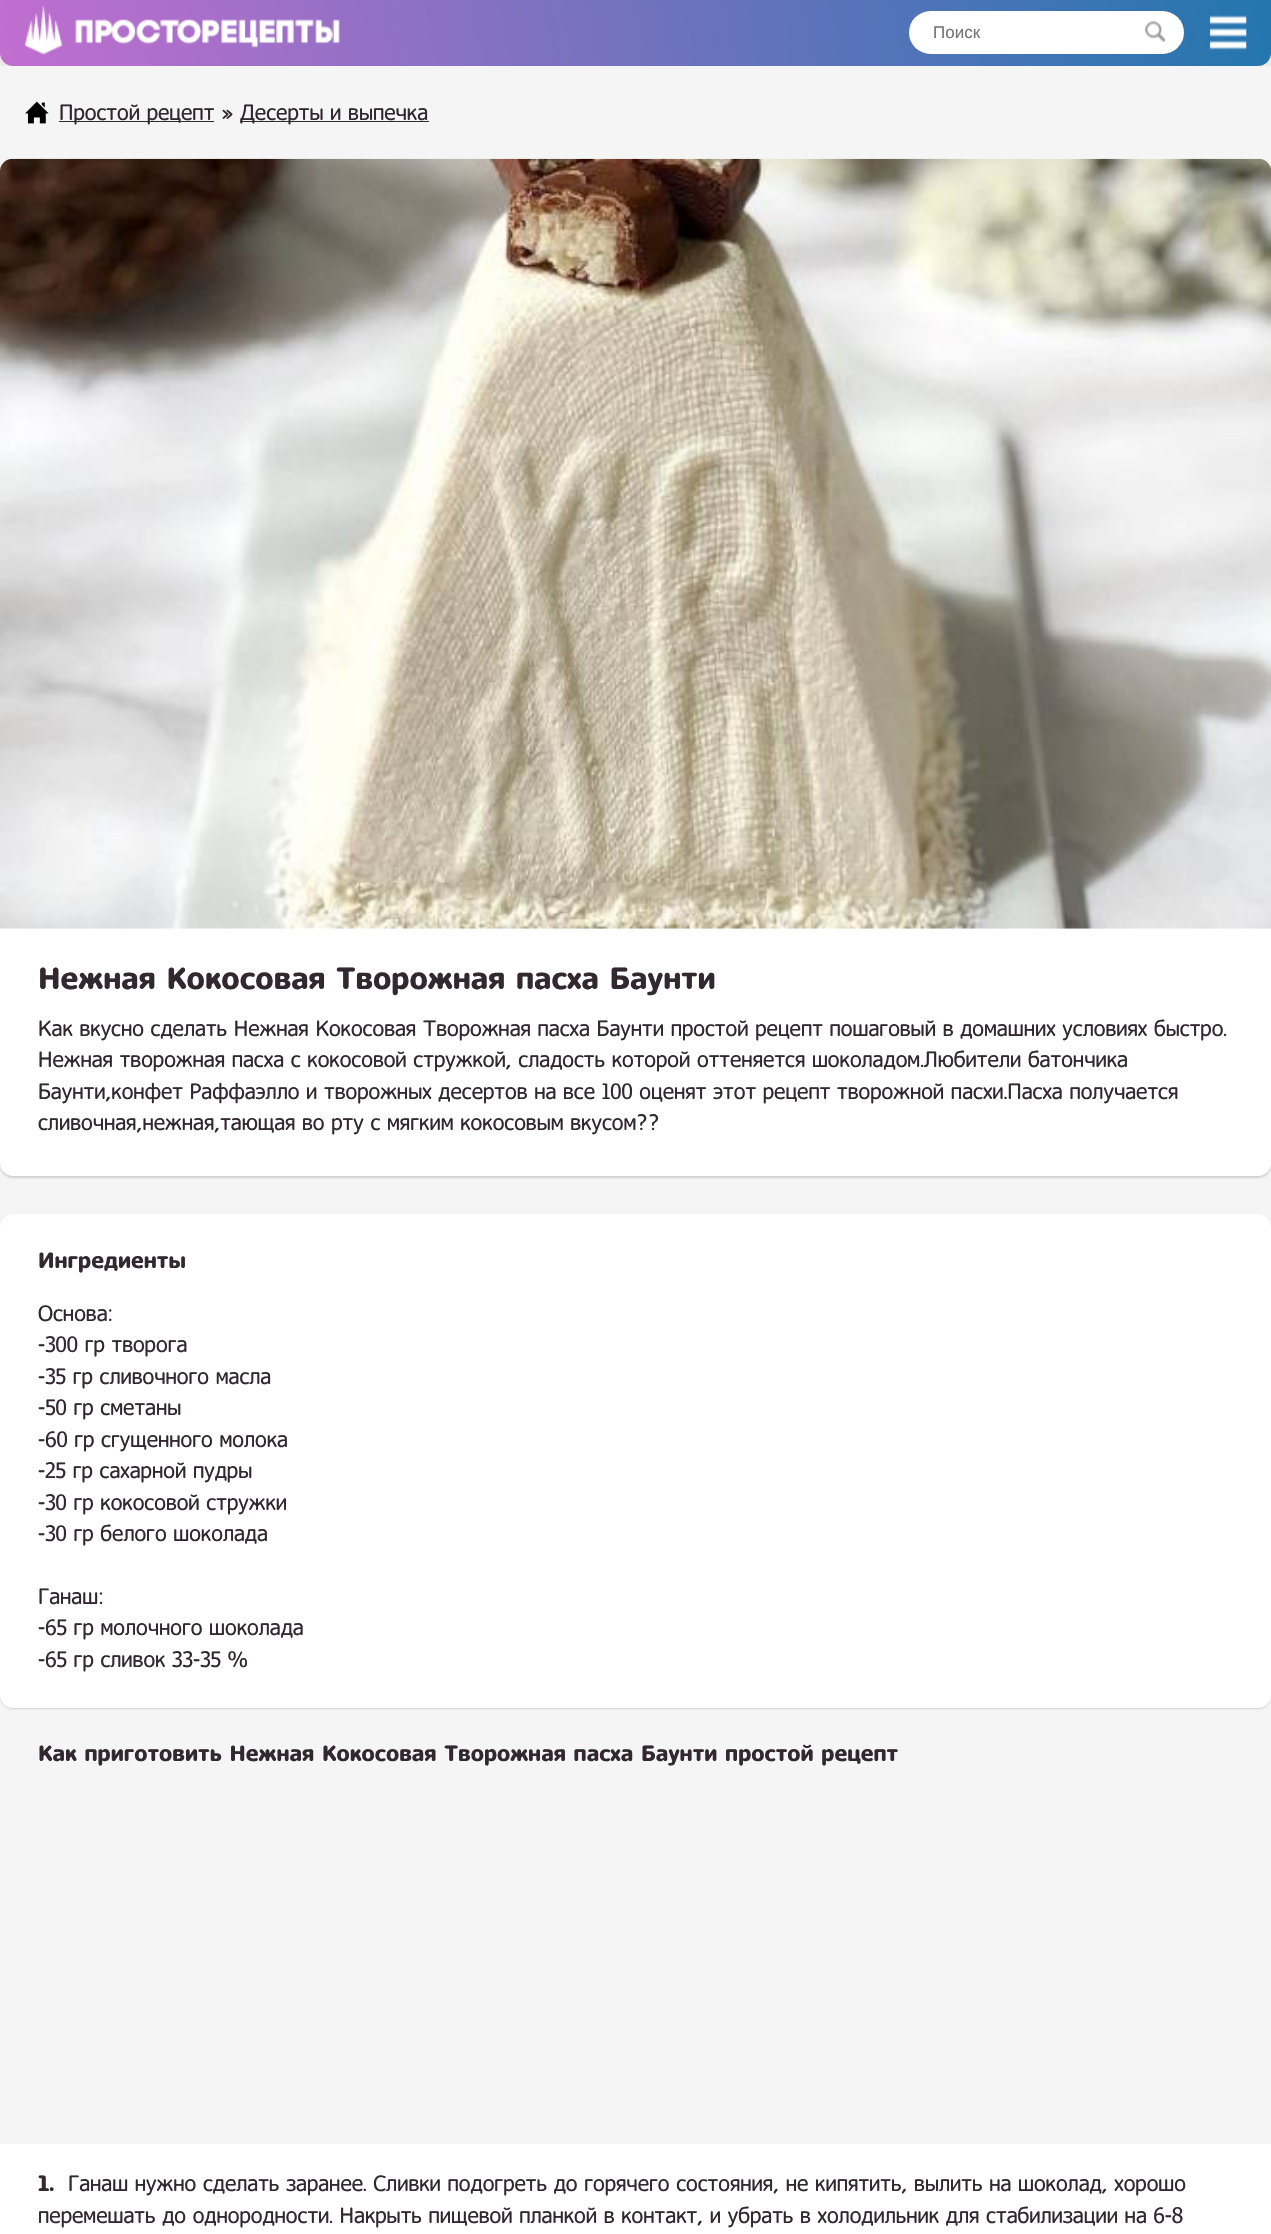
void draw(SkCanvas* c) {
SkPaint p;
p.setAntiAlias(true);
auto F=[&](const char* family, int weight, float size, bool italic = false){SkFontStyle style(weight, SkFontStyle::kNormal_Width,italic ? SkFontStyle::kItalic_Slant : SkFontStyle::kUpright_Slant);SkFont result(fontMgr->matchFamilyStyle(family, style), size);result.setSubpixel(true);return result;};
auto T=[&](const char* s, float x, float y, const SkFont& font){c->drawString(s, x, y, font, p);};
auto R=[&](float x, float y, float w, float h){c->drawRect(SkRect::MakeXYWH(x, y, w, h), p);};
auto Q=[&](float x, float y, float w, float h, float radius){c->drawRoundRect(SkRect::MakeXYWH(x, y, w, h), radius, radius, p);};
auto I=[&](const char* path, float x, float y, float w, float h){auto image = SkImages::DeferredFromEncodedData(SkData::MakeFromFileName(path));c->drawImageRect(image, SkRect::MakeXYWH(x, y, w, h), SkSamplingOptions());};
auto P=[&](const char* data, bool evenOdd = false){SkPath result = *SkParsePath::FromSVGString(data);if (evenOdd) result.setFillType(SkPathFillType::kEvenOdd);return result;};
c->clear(0xffeaeaea);
{
const SkColor colors[] = {0xff2376ae,0xffc16ecf};
const float stops[] = {0,1};
const SkPoint ends[] = {{1258,-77}, {14,143}};
p.setShader(SkGradientShader::MakeLinear(ends, colors, stops, 2, SkTileMode::kClamp));
p.setAlpha(255);
}
c->drawPath(P("M0 0h1271v53c0 7-6 13-13 13h-1245c-7 0-13-6-13-13z"),p);
I("1.png",25,6,38,49);
I("2.png",75,19,265,29);
p.setShader(nullptr);
p.setColor(0xffffffff);
Q(909,11,275,43,21.5);
auto f1 = F("Liberation Sans",400,17);
p.setColor(0xff757575);
T("Поиск",933,38,f1);
I("3.png",1145,20,20,22);
I("4.png",1209,15,38,35);
p.setColor(0xfff5f5f5);
R(0,66,1271,2078);
I("5.png",25,101,24,23);
p.setColor(0xff32292f);
R(59,121,155,1);
auto f2 = F("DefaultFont",400,22.5);
T("Простой рецепт »",59,120,f2);
R(240,121,189,1);
T("Десерты и выпечка",240,120,f2);
p.setColor(0x24000000);
p.setMaskFilter(SkMaskFilter::MakeBlur(kNormal_SkBlurStyle, 1));
c->drawRoundRect(SkRect::MakeXYWH(0,928,1271,250),13,13,p);
p.setMaskFilter(nullptr);
p.setColor(0xffffffff);
c->drawPath(P("M0 926h1271v237c0 7-6 13-13 13h-1245c-7 0-13-6-13-13z"),p);
I("6.png",0,158,1271,771);
auto f3 = F("DefaultFont",700,31.25);
p.setColor(0xff32292f);
T("Нежная Кокосовая Творожная пасха Баунти",38,989,f3);
T("Как вкусно сделать Нежная Кокосовая Творожная пасха Баунти простой рецепт пошаговый в домашних условиях быстро.",38,1036,f2);
T("Нежная творожная пасха с кокосовой стружкой, сладость которой оттеняется шоколадом.Любители батончика",38,1067,f2);
T("Баунти,конфет Раффаэлло и творожных десертов на все 100 оценят этот рецепт творожной пасхи.Пасха получается",38,1099,f2);
T("сливочная,нежная,тающая во рту с мягким кокосовым вкусом?\077",38,1130,f2);
p.setColor(0x24000000);
p.setMaskFilter(SkMaskFilter::MakeBlur(kNormal_SkBlurStyle, 1));
c->drawRoundRect(SkRect::MakeXYWH(0,1215,1271,494),13,13,p);
p.setMaskFilter(nullptr);
p.setColor(0xffffffff);
Q(0,1214,1271,494,13);
auto f4 = F("DefaultFont",700,22.5);
p.setColor(0xff32292f);
T("Ингредиенты",38,1268,f4);
T("Основа:",38,1321,f2);
T("-300 гр творога",38,1352,f2);
T("-35 гр сливочного масла",38,1384,f2);
T("-50 гр сметаны",38,1415,f2);
T("-60 гр сгущенного молока",38,1447,f2);
T("-25 гр сахарной пудры",38,1478,f2);
T("-30 гр кокосовой стружки",38,1510,f2);
T("-30 гр белого шоколада",38,1541,f2);
T("Ганаш:",38,1604,f2);
T("-65 гр молочного шоколада",38,1635,f2);
T("-65 гр сливок 33-35 %",38,1667,f2);
T("Как приготовить Нежная Кокосовая Творожная пасха Баунти простой рецепт",38,1761,f4);
p.setColor(0xffffffff);
R(0,2144,1271,90);
p.setColor(0xff32292f);
T("1.",38,2191,f4);
T("Ганаш нужно сделать заранее. Сливки подогреть до горячего состояния, не кипятить, вылить на шоколад, хорошо",68,2191,f2);
T("перемешать до однородности. Накрыть пищевой планкой в контакт, и убрать в холодильник для стабилизации на 6-8",38,2223,f2);
}
